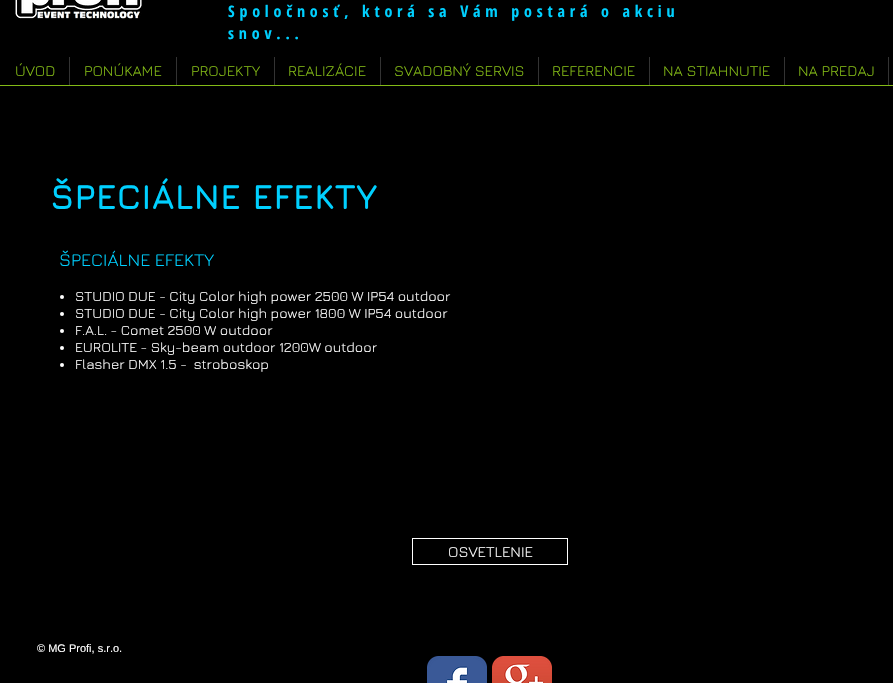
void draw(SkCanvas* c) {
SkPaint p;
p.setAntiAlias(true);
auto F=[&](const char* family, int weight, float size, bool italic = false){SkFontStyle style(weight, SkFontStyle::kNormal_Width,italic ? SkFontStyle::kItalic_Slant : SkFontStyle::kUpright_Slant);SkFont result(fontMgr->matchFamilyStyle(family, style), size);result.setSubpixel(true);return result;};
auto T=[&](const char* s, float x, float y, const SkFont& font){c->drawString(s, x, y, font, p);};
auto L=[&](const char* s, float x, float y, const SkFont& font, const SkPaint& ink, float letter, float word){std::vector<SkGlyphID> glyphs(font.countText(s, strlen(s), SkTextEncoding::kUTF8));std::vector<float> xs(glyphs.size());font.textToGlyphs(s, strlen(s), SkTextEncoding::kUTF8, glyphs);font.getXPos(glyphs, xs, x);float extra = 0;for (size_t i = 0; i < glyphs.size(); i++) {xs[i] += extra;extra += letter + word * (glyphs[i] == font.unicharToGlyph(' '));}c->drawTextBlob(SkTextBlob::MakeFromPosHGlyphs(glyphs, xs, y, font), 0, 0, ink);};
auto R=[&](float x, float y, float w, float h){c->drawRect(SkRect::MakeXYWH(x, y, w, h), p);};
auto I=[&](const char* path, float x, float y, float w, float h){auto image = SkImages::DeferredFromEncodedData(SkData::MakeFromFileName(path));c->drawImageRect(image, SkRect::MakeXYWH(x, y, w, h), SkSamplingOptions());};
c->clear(0xff000000);
I("1.png",15,0,127,19);
auto f1 = F("Open Sans Condensed",700,16);
p.setColor(0xff00d0ff);
L("Spoločnosť, ktorá sa Vám postará o akciu",228,17,f1,p,4.8,0);
L("snov...",228,39,f1,p,4.8,0);
auto f2 = F("Jura",400,15);
p.setColor(0xff83ba16);
T("ÚVOD",15,76,f2);
p.setColor(0xff333333);
R(69,57,1,28);
p.setColor(0xff83ba16);
T("PONÚKAME",84,76,f2);
p.setColor(0xff333333);
R(176,57,1,28);
p.setColor(0xff83ba16);
T("PROJEKTY",191,76,f2);
p.setColor(0xff333333);
R(274,57,1,28);
p.setColor(0xff83ba16);
T("REALIZÁCIE",288,76,f2);
p.setColor(0xff333333);
R(380,57,1,28);
p.setColor(0xff83ba16);
T("SVADOBNÝ SERVIS",394,76,f2);
p.setColor(0xff333333);
R(538,57,1,28);
p.setColor(0xff83ba16);
T("REFERENCIE",552,76,f2);
p.setColor(0xff333333);
R(649,57,1,28);
p.setColor(0xff83ba16);
T("NA STIAHNUTIE",663,76,f2);
p.setColor(0xff333333);
R(784,57,1,28);
p.setColor(0xff83ba16);
T("NA PREDAJ",798,76,f2);
p.setColor(0xff333333);
R(888,57,1,28);
p.setColor(0xff83ba16);
R(0,85,893,1);
auto f3 = F("Jura",700,35);
p.setColor(0xff00d0ff);
T("ŠPECIÁLNE EFEKTY",50,209,f3);
auto f4 = F("Jura",400,18);
T("ŠPECIÁLNE EFEKTY",59,266,f4);
p.setColor(0xffffffff);
c->drawCircle(62,297,2,p);
auto f5 = F("Jura",400,14);
T("STUDIO DUE - City Color high power 2500 W IP54 outdoor",75,301,f5);
c->drawCircle(62,314,2,p);
T("STUDIO DUE - City Color high power 1800 W IP54 outdoor",75,318,f5);
c->drawCircle(62,331,2,p);
T("F.A.L. - Comet 2500 W outdoor",75,335,f5);
c->drawCircle(62,348,2,p);
T("EUROLITE - Sky-beam outdoor 1200W outdoor",75,352,f5);
c->drawCircle(62,365,2,p);
T("Flasher DMX 1.5 -  stroboskop",75,369,f5);
p.setStroke(true);
p.setStrokeWidth(1);
c->drawRect(SkRect::MakeXYWH(412.5,538.5,155,26),p);
p.setStroke(false);
T("OSVETLENIE",448,557,f2);
auto f6 = F("Liberation Sans",400,11);
T("© MG Profi, s.r.o.",37,652,f6);
I("2.png",427,656,60,27);
I("3.png",492,656,60,27);
}
